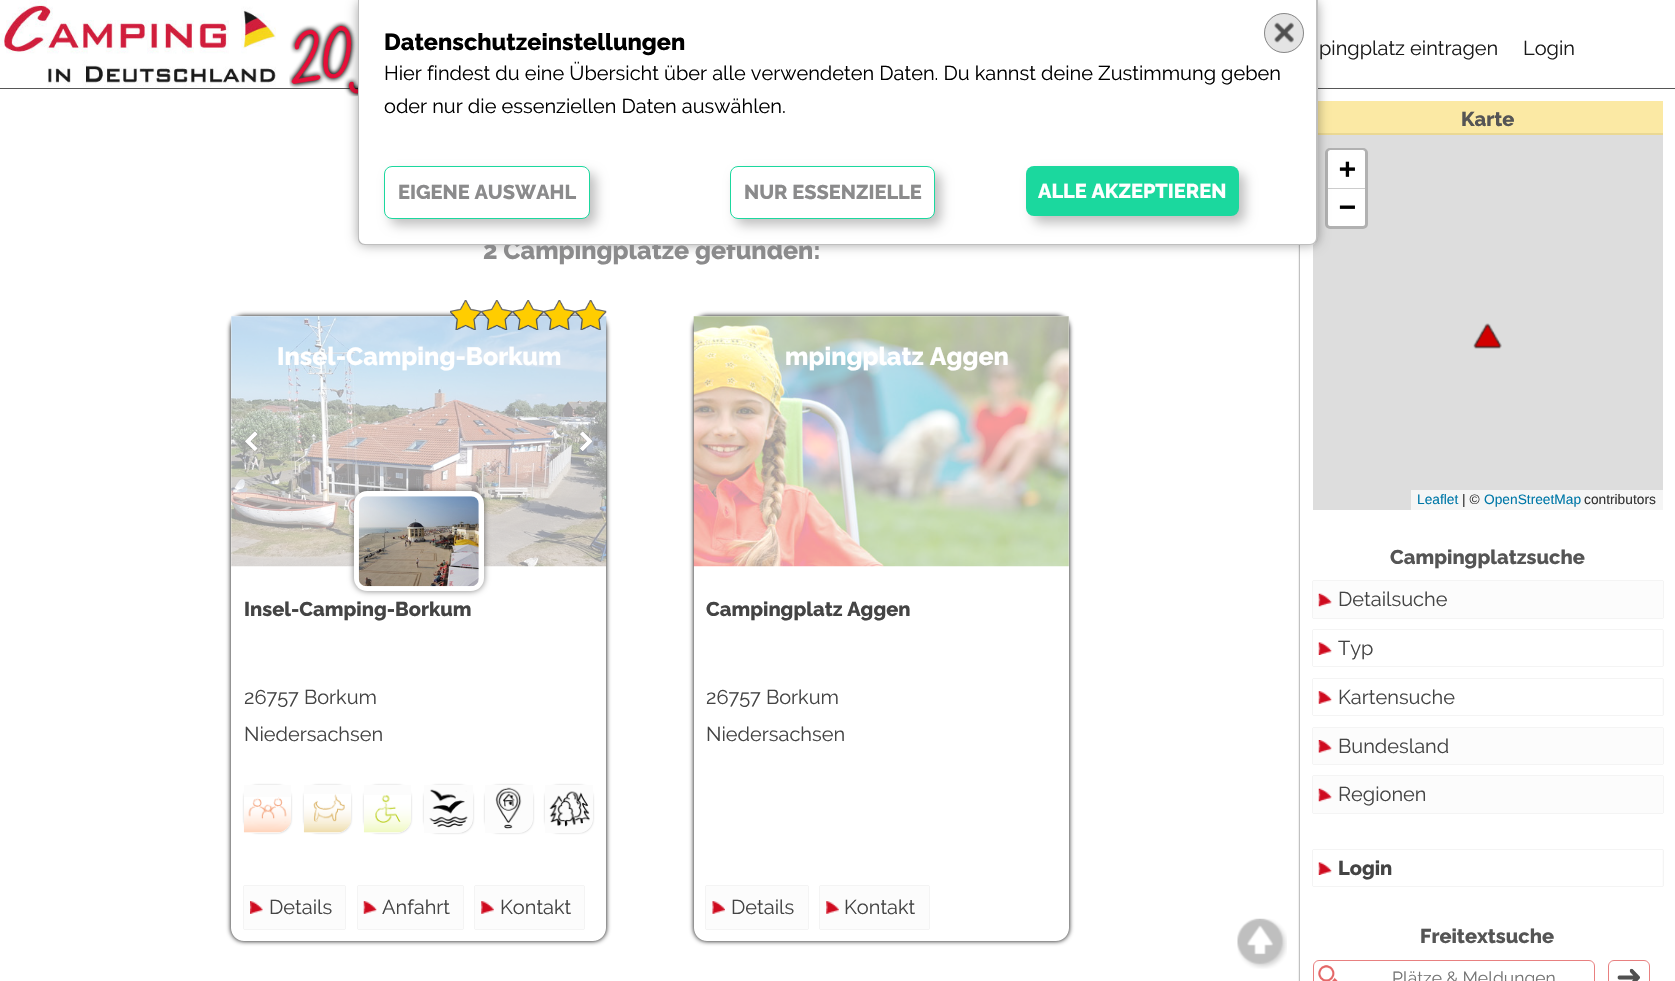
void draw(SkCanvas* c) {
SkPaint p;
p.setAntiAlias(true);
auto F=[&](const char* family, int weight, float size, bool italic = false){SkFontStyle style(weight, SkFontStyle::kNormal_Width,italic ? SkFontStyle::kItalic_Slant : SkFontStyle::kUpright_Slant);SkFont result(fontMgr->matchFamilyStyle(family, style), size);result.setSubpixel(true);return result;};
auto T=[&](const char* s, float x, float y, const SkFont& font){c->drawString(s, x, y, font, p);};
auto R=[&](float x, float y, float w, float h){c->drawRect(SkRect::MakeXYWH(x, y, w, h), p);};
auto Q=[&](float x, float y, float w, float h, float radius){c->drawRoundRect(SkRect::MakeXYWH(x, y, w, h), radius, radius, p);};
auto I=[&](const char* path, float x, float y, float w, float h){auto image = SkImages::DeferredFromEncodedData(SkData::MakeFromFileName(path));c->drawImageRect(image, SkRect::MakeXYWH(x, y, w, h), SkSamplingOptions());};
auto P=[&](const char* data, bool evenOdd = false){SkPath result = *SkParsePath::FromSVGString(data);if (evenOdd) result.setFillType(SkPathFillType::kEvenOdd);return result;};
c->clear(0xffffffff);
c->save();
c->clipPath(P("M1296 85h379v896h-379zm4 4h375v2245h-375z",true),true);
p.setColor(0xbf000000);
p.setMaskFilter(SkMaskFilter::MakeBlur(kNormal_SkBlurStyle, 1));
c->drawRect(SkRect::MakeXYWH(1300,89,375,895),p);
p.setMaskFilter(nullptr);
c->restore();
p.setColor(0xe6ffffff);
R(1298,87,377,2);
p.setColor(0xe6444444);
R(0,88,1675,1);
I("1.png",289,21,69,76);
p.setColor(0xfffbe9a4);
R(1318,101,345,32);
p.setColor(0xffead893);
R(1313,133,350,2);
p.setColor(0xffdddddd);
R(1313,135,350,375);
p.setStroke(true);
p.setStrokeWidth(3);
p.setColor(0xffb1b1b1);
c->drawRoundRect(SkRect::MakeXYWH(1326.5,149.5,40,78),3.5,3.5,p);
p.setStroke(false);
p.setColor(0xffffffff);
c->drawPath(P("M1330.5 150h32c1.5 0 2.5 1 2.5 2.5v36.5h-37v-36.5c0-1.5 1-2.5 2.5-2.5z"),p);
p.setColor(0xffcccccc);
R(1328,188,37,1);
p.setColor(0xffffffff);
c->drawPath(P("M1328 189h37v34.5c0 1.5-1 2.5-2.5 2.5h-32c-1.5 0-2.5-1-2.5-2.5z"),p);
p.setColor(0x59000000);
p.setMaskFilter(SkMaskFilter::MakeBlur(kNormal_SkBlurStyle, 6));
c->drawRoundRect(SkRect::MakeXYWH(358,0,960,245),8,8,p);
p.setMaskFilter(nullptr);
auto f1 = F("Raleway",800,25);
p.setColor(0xff8b8b8c);
T("2 Campingplätze gefunden:",483,259,f1);
p.setColor(0xffffffff);
c->drawPath(P("M358 0h960v237c0 4.5-3.5 8-8 8h-944c-4.5 0-8-3.5-8-8z"),p);
p.setColor(0x40000000);
c->drawPath(P("M358 0h960v238c0 4-4 7-8 7h-945c-4 0-7-3-7-7zm1 0h957v238c0 3-3 6-6 6h-945c-3 0-6-3-6-6z",true),p);
auto f2 = F("Raleway",800,23.4);
p.setColor(0xff000000);
T("Datenschutzeinstellungen",384,50,f2);
auto f3 = F("Raleway",400,20);
T("Hier findest du eine Übersicht über alle verwendeten Daten. Du kannst deine Zustimmung geben",384,80,f3);
T("oder nur die essenziellen Daten auswählen.",384,113,f3);
p.setColor(0x40000000);
p.setMaskFilter(SkMaskFilter::MakeBlur(kNormal_SkBlurStyle, 6));
c->drawRoundRect(SkRect::MakeXYWH(390,173,206,52),8,8,p);
p.setMaskFilter(nullptr);
p.setColor(0xffffffff);
c->drawRoundRect(SkRect::MakeXYWH(384.5,166.5,205,52),7.5,7.5,p);
p.setStroke(true);
p.setStrokeWidth(1);
p.setColor(0xff1bd89e);
c->drawRoundRect(SkRect::MakeXYWH(384.5,166.5,205,52),7.5,7.5,p);
auto f4 = F("Raleway",800,20);
p.setStroke(false);
p.setColor(0xff8b8b8c);
T("EIGENE AUSWAHL",398,199,f4);
p.setColor(0x40000000);
p.setMaskFilter(SkMaskFilter::MakeBlur(kNormal_SkBlurStyle, 6));
c->drawRoundRect(SkRect::MakeXYWH(736,173,205,52),8,8,p);
p.setMaskFilter(nullptr);
p.setColor(0xffffffff);
c->drawRoundRect(SkRect::MakeXYWH(730.5,166.5,204,52),7.5,7.5,p);
p.setStroke(true);
p.setColor(0xff1bd89e);
c->drawRoundRect(SkRect::MakeXYWH(730.5,166.5,204,52),7.5,7.5,p);
p.setStroke(false);
p.setColor(0xff8b8b8c);
T("NUR ESSENZIELLE",744,199,f4);
p.setColor(0x40000000);
p.setMaskFilter(SkMaskFilter::MakeBlur(kNormal_SkBlurStyle, 6));
c->drawRoundRect(SkRect::MakeXYWH(1033,173,212,50),8,8,p);
p.setMaskFilter(nullptr);
p.setColor(0xff1bd89e);
Q(1026,166,213,50,8);
p.setColor(0xffffffff);
T("ALLE AKZEPTIEREN",1038,198,f4);
p.setColor(0xffe4e4e4);
c->drawCircle(1284,33,20,p);
I("2.png",1274,22,20,21);
p.setStroke(true);
p.setColor(0xff888888);
c->drawCircle(1284,33,19.5,p);
I("3.png",0,0,276,87);
p.setStroke(false);
p.setColor(0xff1a1a1a);
T("pingplatz eintragen",1319,55,f3);
T("Login",1523,55,f3);
c->save();
c->clipPath(P("M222 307h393v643h-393zm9 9h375v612c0 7-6 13-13 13h-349c-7 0-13-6-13-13z",true),true);
p.setColor(0xff000000);
p.setMaskFilter(SkMaskFilter::MakeBlur(kNormal_SkBlurStyle, 2.5));
c->drawRoundRect(SkRect::MakeXYWH(231,316,375,625),13,13,p);
p.setMaskFilter(nullptr);
c->restore();
I("5.png",231,316,376,251);
I("4.png",450,300,157,30);
p.setColor(0xffffffff);
T("Insel-Camping-Borkum",277,365,f1);
p.setColor(0x80000000);
p.setMaskFilter(SkMaskFilter::MakeBlur(kNormal_SkBlurStyle, 3));
c->drawRoundRect(SkRect::MakeXYWH(354,491,130,100),13,13,p);
p.setMaskFilter(nullptr);
p.setColor(0xffffffff);
Q(354,491,130,100,13);
I("6.png",358,496,121,91);
I("7.png",244,431,14,21);
I("8.png",579,431,14,21);
p.setColor(0xff444444);
T("Insel-Camping-Borkum",244,616,f4);
T("26757 Borkum",244,704,f3);
T("Niedersachsen",244,741,f3);
c->save();
c->clipPath(P("M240 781h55v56h-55zm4 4h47v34c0 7.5-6.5 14-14 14h-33z",true),true);
p.setColor(0x40000000);
p.setMaskFilter(SkMaskFilter::MakeBlur(kNormal_SkBlurStyle, 1));
c->drawRoundRect(SkRect::MakeXYWH(244,785,47,48),14,14,p);
p.setMaskFilter(nullptr);
c->restore();
p.setColor(0x80fafafa);
c->drawPath(P("M244 785h47v34c0 7.5-6.5 14-14 14h-33z"),p);
I("9.png",243,797,48,36);
c->save();
c->clipPath(P("M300 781h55v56h-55zm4 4h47v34c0 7.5-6.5 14-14 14h-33z",true),true);
p.setColor(0x40000000);
p.setMaskFilter(SkMaskFilter::MakeBlur(kNormal_SkBlurStyle, 1));
c->drawRoundRect(SkRect::MakeXYWH(304,785,47,48),14,14,p);
p.setMaskFilter(nullptr);
c->restore();
p.setColor(0x80fafafa);
c->drawPath(P("M304 785h47v34c0 7.5-6.5 14-14 14h-33z"),p);
I("10.png",303,794,48,39);
c->save();
c->clipPath(P("M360 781h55v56h-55zm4 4h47v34c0 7.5-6.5 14-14 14h-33z",true),true);
p.setColor(0x40000000);
p.setMaskFilter(SkMaskFilter::MakeBlur(kNormal_SkBlurStyle, 1));
c->drawRoundRect(SkRect::MakeXYWH(364,785,47,48),14,14,p);
p.setMaskFilter(nullptr);
c->restore();
p.setColor(0x80fafafa);
c->drawPath(P("M364 785h47v34c0 7.5-6.5 14-14 14h-33z"),p);
I("11.png",363,795,48,38);
c->save();
c->clipPath(P("M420 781h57v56h-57zm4 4h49v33c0 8.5-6.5 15-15 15h-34z",true),true);
p.setColor(0x40000000);
p.setMaskFilter(SkMaskFilter::MakeBlur(kNormal_SkBlurStyle, 1));
c->drawRoundRect(SkRect::MakeXYWH(424,785,49,48),14,14,p);
p.setMaskFilter(nullptr);
c->restore();
p.setColor(0x80fafafa);
c->drawPath(P("M424 785h49v33c0 8.5-6.5 15-15 15h-34z"),p);
I("12.png",429,789,39,39);
c->save();
c->clipPath(P("M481 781h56v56h-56zm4 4h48v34c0 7.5-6.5 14-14 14h-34z",true),true);
p.setColor(0x40000000);
p.setMaskFilter(SkMaskFilter::MakeBlur(kNormal_SkBlurStyle, 1));
c->drawRoundRect(SkRect::MakeXYWH(485,785,48,48),14,14,p);
p.setMaskFilter(nullptr);
c->restore();
p.setColor(0x80fafafa);
c->drawPath(P("M485 785h48v34c0 7.5-6.5 14-14 14h-34z"),p);
I("13.png",495,787,27,42);
c->save();
c->clipPath(P("M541 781h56v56h-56zm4 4h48v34c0 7.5-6.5 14-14 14h-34z",true),true);
p.setColor(0x40000000);
p.setMaskFilter(SkMaskFilter::MakeBlur(kNormal_SkBlurStyle, 1));
c->drawRoundRect(SkRect::MakeXYWH(545,785,48,48),14,14,p);
p.setMaskFilter(nullptr);
c->restore();
p.setColor(0x80fafafa);
c->drawPath(P("M545 785h48v34c0 7.5-6.5 14-14 14h-34z"),p);
I("14.png",549,791,41,36);
c->save();
c->clipPath(P("M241 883h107v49h-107zm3 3h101v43h-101z",true),true);
p.setColor(0x40000000);
p.setMaskFilter(SkMaskFilter::MakeBlur(kNormal_SkBlurStyle, .5));
c->drawRect(SkRect::MakeXYWH(244,886,101,43),p);
p.setMaskFilter(nullptr);
c->restore();
p.setColor(0x80fafafa);
R(244,886,101,43);
I("15.png",250,901,13,13);
p.setColor(0xff444444);
T("Details",269,914,f3);
c->save();
c->clipPath(P("M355 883h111v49h-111zm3 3h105v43h-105z",true),true);
p.setColor(0x40000000);
p.setMaskFilter(SkMaskFilter::MakeBlur(kNormal_SkBlurStyle, .5));
c->drawRect(SkRect::MakeXYWH(358,886,105,43),p);
p.setMaskFilter(nullptr);
c->restore();
p.setColor(0x80fafafa);
R(358,886,105,43);
I("16.png",363,901,14,13);
p.setColor(0xff444444);
T("Anfahrt",382,914,f3);
c->save();
c->clipPath(P("M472 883h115v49h-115zm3 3h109v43h-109z",true),true);
p.setColor(0x40000000);
p.setMaskFilter(SkMaskFilter::MakeBlur(kNormal_SkBlurStyle, .5));
c->drawRect(SkRect::MakeXYWH(475,886,109,43),p);
p.setMaskFilter(nullptr);
c->restore();
p.setColor(0x80fafafa);
R(475,886,109,43);
I("17.png",481,901,13,13);
p.setColor(0xff444444);
T("Kontakt",500,914,f3);
c->save();
c->clipPath(P("M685 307h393v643h-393zm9 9h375v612c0 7-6 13-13 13h-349c-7 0-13-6-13-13z",true),true);
p.setColor(0xff000000);
p.setMaskFilter(SkMaskFilter::MakeBlur(kNormal_SkBlurStyle, 2.5));
c->drawRoundRect(SkRect::MakeXYWH(694,316,375,625),13,13,p);
p.setMaskFilter(nullptr);
c->restore();
I("18.png",693,316,376,251);
p.setColor(0xffffffff);
T("mpingplatz Aggen",785,365,f1);
p.setColor(0xff444444);
T("Campingplatz Aggen",706,616,f4);
T("26757 Borkum",706,704,f3);
T("Niedersachsen",706,741,f3);
c->save();
c->clipPath(P("M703 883h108v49h-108zm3 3h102v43h-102z",true),true);
p.setColor(0x40000000);
p.setMaskFilter(SkMaskFilter::MakeBlur(kNormal_SkBlurStyle, .5));
c->drawRect(SkRect::MakeXYWH(706,886,102,43),p);
p.setMaskFilter(nullptr);
c->restore();
p.setColor(0x80fafafa);
R(706,886,102,43);
I("19.png",712,901,13,13);
p.setColor(0xff444444);
T("Details",731,914,f3);
c->save();
c->clipPath(P("M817 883h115v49h-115zm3 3h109v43h-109z",true),true);
p.setColor(0x40000000);
p.setMaskFilter(SkMaskFilter::MakeBlur(kNormal_SkBlurStyle, .5));
c->drawRect(SkRect::MakeXYWH(820,886,109,43),p);
p.setMaskFilter(nullptr);
c->restore();
p.setColor(0x80fafafa);
R(820,886,109,43);
I("17.png",826,901,13,13);
p.setColor(0xff444444);
T("Kontakt",844,914,f3);
p.setColor(0xff555555);
T("Karte",1461,126,f4);
auto f5 = F("DejaVu Sans Mono",700,28);
p.setColor(0xff000000);
T("+",1339,178,f5);
T("−",1339,216,f5);
p.setColor(0xfff5f5f5);
R(1411,490,252,20);
auto f6 = F("Liberation Sans",400,13.75);
p.setColor(0xff0078a8);
T("Leaflet",1417,504,f6);
p.setColor(0xff333333);
T("| ©",1462,504,f6);
p.setColor(0xff0078a8);
T("OpenStreetMap",1484,504,f6);
p.setColor(0xff333333);
T("contributors",1584,504,f6);
I("20.png",1473,323,29,26);
p.setColor(0xff555555);
T("Campingplatzsuche",1390,564,f4);
c->save();
c->clipPath(P("M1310 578h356v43h-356zm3 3h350v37h-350z",true),true);
p.setColor(0x40000000);
p.setMaskFilter(SkMaskFilter::MakeBlur(kNormal_SkBlurStyle, .5));
c->drawRect(SkRect::MakeXYWH(1313,581,350,37),p);
p.setMaskFilter(nullptr);
c->restore();
p.setColor(0x80fafafa);
R(1313,581,350,37);
I("21.png",1318,593,14,14);
p.setColor(0xff444444);
T("Detailsuche",1338,606,f3);
c->save();
c->clipPath(P("M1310 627h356v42h-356zm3 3h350v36h-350z",true),true);
p.setColor(0x40000000);
p.setMaskFilter(SkMaskFilter::MakeBlur(kNormal_SkBlurStyle, .5));
c->drawRect(SkRect::MakeXYWH(1313,630,350,36),p);
p.setMaskFilter(nullptr);
c->restore();
p.setColor(0x80fafafa);
R(1662,630,1,36);
I("22.png",1318,642,14,13);
p.setColor(0xff444444);
T("Typ",1338,655,f3);
c->save();
c->clipPath(P("M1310 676h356v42h-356zm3 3h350v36h-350z",true),true);
p.setColor(0x40000000);
p.setMaskFilter(SkMaskFilter::MakeBlur(kNormal_SkBlurStyle, .5));
c->drawRect(SkRect::MakeXYWH(1313,679,350,36),p);
p.setMaskFilter(nullptr);
c->restore();
p.setColor(0x80fafafa);
R(1662,679,1,36);
I("23.png",1318,691,14,13);
p.setColor(0xff444444);
T("Kartensuche",1338,704,f3);
c->save();
c->clipPath(P("M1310 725h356v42h-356zm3 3h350v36h-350z",true),true);
p.setColor(0x40000000);
p.setMaskFilter(SkMaskFilter::MakeBlur(kNormal_SkBlurStyle, .5));
c->drawRect(SkRect::MakeXYWH(1313,728,350,36),p);
p.setMaskFilter(nullptr);
c->restore();
p.setColor(0x80fafafa);
R(1313,728,350,36);
I("24.png",1318,740,14,13);
p.setColor(0xff444444);
T("Bundesland",1338,753,f3);
c->save();
c->clipPath(P("M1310 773h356v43h-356zm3 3h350v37h-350z",true),true);
p.setColor(0x40000000);
p.setMaskFilter(SkMaskFilter::MakeBlur(kNormal_SkBlurStyle, .5));
c->drawRect(SkRect::MakeXYWH(1313,776,350,37),p);
p.setMaskFilter(nullptr);
c->restore();
p.setColor(0x80fafafa);
R(1313,776,350,37);
I("21.png",1318,788,14,14);
p.setColor(0xff444444);
T("Regionen",1338,801,f3);
c->save();
c->clipPath(P("M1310 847h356v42h-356zm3 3h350v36h-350z",true),true);
p.setColor(0x40000000);
p.setMaskFilter(SkMaskFilter::MakeBlur(kNormal_SkBlurStyle, .5));
c->drawRect(SkRect::MakeXYWH(1313,850,350,36),p);
p.setMaskFilter(nullptr);
c->restore();
p.setColor(0x80fafafa);
R(1662,850,1,36);
I("22.png",1318,862,14,13);
p.setColor(0xff444444);
T("Login",1338,875,f4);
p.setColor(0xff555555);
T("Freitextsuche",1420,943,f4);
I("25.png",1318,965,20,16);
p.setStroke(true);
p.setColor(0xffe88080);
c->drawRoundRect(SkRect::MakeXYWH(1313.5,960.5,281,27),5.5,5.5,p);
auto f7 = F("Raleway",400,17.5);
p.setStroke(false);
p.setColor(0xff757575);
T("Plätze & Meldungen",1392,984,f7);
I("26.png",1617,968,23,13);
p.setStroke(true);
p.setColor(0xffe88080);
c->drawRoundRect(SkRect::MakeXYWH(1608.5,960.5,41,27),5.5,5.5,p);
I("27.png",1237,918,50,51);
}
